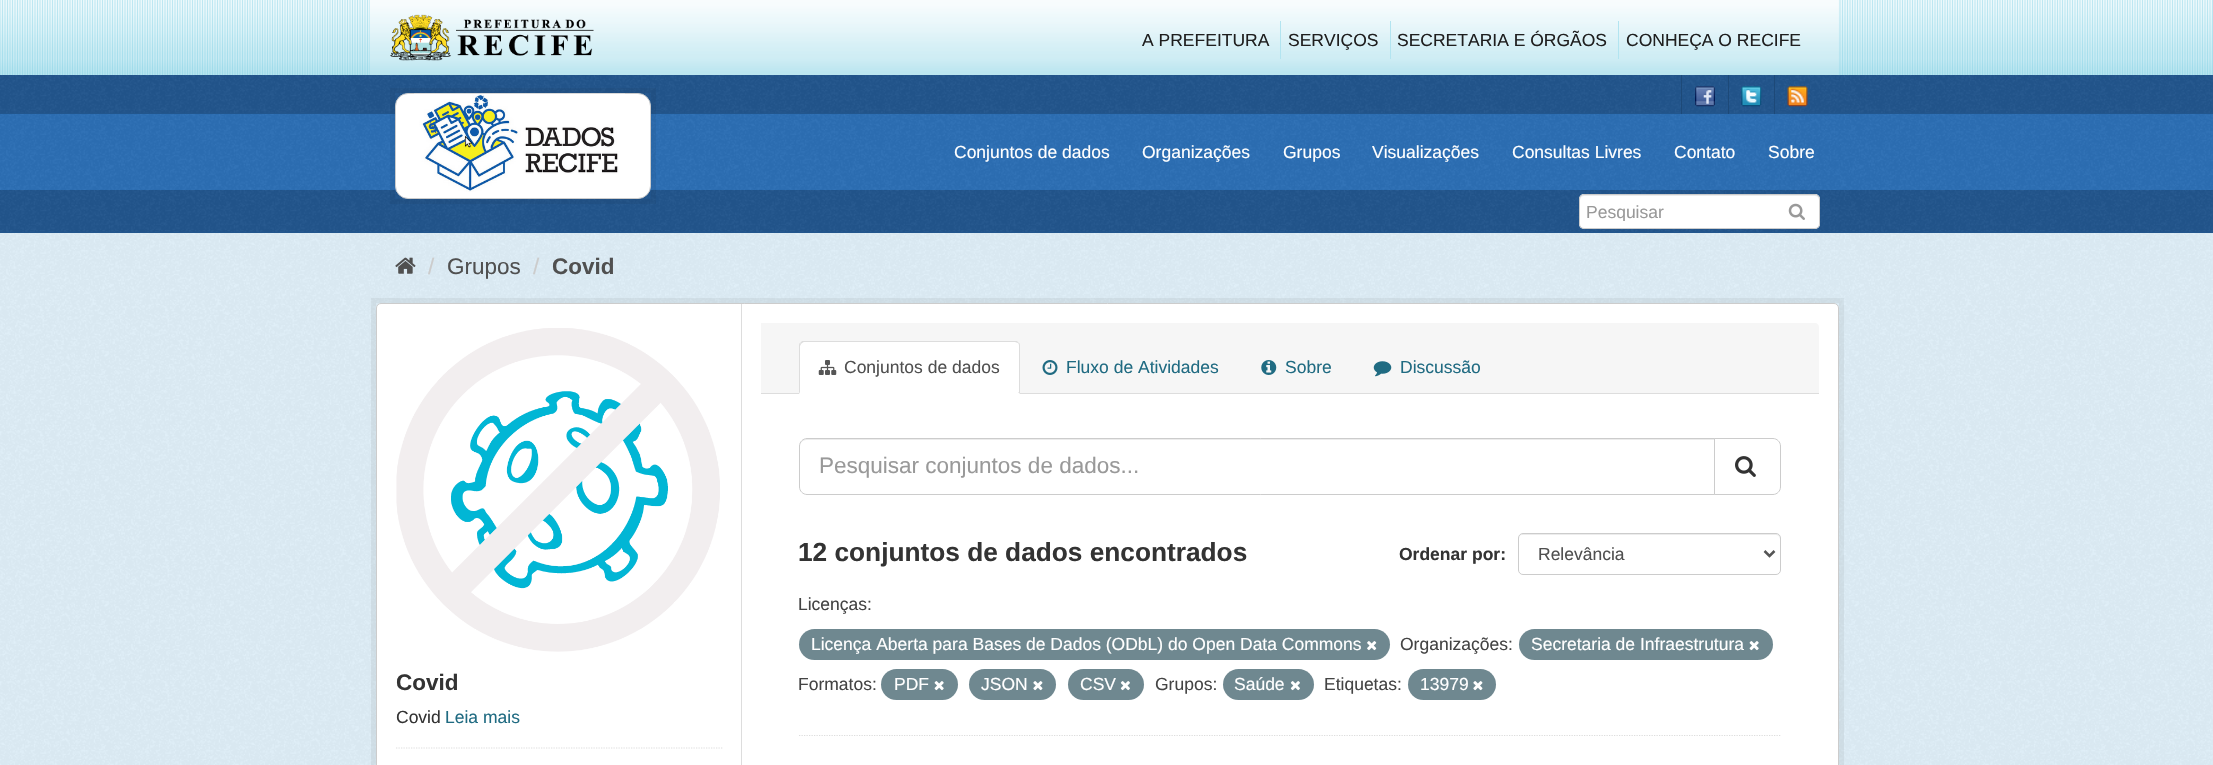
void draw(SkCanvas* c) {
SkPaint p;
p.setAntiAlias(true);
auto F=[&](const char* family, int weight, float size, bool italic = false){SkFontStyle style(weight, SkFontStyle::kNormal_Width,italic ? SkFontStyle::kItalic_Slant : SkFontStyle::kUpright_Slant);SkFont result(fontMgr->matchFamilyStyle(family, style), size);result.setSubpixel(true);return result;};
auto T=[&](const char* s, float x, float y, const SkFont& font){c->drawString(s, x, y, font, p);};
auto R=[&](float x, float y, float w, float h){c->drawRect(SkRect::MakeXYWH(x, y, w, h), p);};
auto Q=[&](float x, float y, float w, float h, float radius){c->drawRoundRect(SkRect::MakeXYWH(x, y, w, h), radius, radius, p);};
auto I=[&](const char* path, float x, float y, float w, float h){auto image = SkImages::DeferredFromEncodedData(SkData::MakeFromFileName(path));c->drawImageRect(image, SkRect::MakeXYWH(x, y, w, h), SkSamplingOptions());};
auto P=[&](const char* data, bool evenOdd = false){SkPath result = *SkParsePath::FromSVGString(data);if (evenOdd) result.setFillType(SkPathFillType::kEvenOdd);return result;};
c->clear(0xffffffff);
I("1.png",0,0,2213,75);
I("2.png",370,0,1469,75);
I("3.png",390,14,204,47);
auto f1 = F("Liberation Sans",400,17.5);
p.setColor(0xff1f1f1f);
T("A PREFEITURA",1142,46,f1);
p.setColor(0xffb2e4f0);
R(1280,21,1,38);
p.setColor(0xff1f1f1f);
T("SERVIÇOS",1288,46,f1);
p.setColor(0xffb2e4f0);
R(1390,21,1,38);
p.setColor(0xff1f1f1f);
T("SECRETARIA E ÓRGÃOS",1397,46,f1);
p.setColor(0xffb2e4f0);
R(1618,21,1,38);
p.setColor(0xff1f1f1f);
T("CONHEÇA O RECIFE",1626,46,f1);
p.setColor(0xff22568d);
R(0,75,2213,39);
I("4.png",0,75,2213,38);
p.setColor(0xff1d4978);
R(1681,75,1,39);
I("5.png",1695,86,20,21);
R(1728,75,1,39);
I("6.png",1741,86,21,21);
R(1774,75,1,39);
I("7.png",1787,86,21,21);
p.setColor(0xff2c6fb6);
R(0,114,2213,76);
I("8.png",0,114,2213,76);
p.setColor(0xff22568d);
R(0,190,2213,43);
I("10.png",0,190,2213,42);
p.setStroke(true);
p.setStrokeWidth(5);
p.setColor(0x0d000000);
c->drawRect(SkRect::MakeXYWH(392.5,90.5,261,111),p);
p.setStroke(false);
p.setColor(0xffffffff);
c->drawRoundRect(SkRect::MakeXYWH(395.5,93.5,255,105),12.5,12.5,p);
p.setStroke(true);
p.setStrokeWidth(1);
p.setColor(0xffcccccc);
c->drawRoundRect(SkRect::MakeXYWH(395.5,93.5,255,105),12.5,12.5,p);
I("9.png",414,93,211,99);
p.setStroke(false);
p.setColor(0xffffffff);
T("Conjuntos de dados",954,158,f1);
T("Organizações",1142,158,f1);
T("Grupos",1283,158,f1);
T("Visualizações",1372,158,f1);
T("Consultas Livres",1512,158,f1);
T("Contato",1674,158,f1);
T("Sobre",1768,158,f1);
Q(1579,194,241,35,5);
p.setColor(0xffececec);
c->drawPath(P("M1584 196h231c2 0 4 2 4 4c0-3-1-5-4-5h-231c-3 0-4 2-4 5c0-2 2-4 4-4z"),p);
p.setStroke(true);
p.setColor(0xffcccccc);
c->drawRoundRect(SkRect::MakeXYWH(1579.5,194.5,240,34),4.5,4.5,p);
c->save();
c->clipRect(SkRect::MakeXYWH(1586,201,227,20));
p.setStroke(false);
p.setColor(0xff999999);
T("Pesquisar",1586,218,f1);
c->restore();
I("11.png",1788,203,17,17);
p.setColor(0xffe0f0f9);
R(0,233,2213,532);
I("12.png",0,233,2213,532);
I("13.png",395,257,21,17);
auto f2 = F("Liberation Sans",400,22.5);
p.setColor(0xffcccccc);
T("/",428,274,f2);
p.setColor(0xff505050);
T("Grupos",447,274,f2);
p.setColor(0xffcccccc);
T("/",533,274,f2);
auto f3 = F("Liberation Sans",700,22.5);
p.setColor(0xff505050);
T("Covid",552,274,f3);
p.setStroke(true);
p.setStrokeWidth(5);
p.setColor(0x0d000000);
c->drawRect(SkRect::MakeXYWH(373.5,300.5,1468,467),p);
p.setStroke(false);
p.setColor(0xffffffff);
c->drawRoundRect(SkRect::MakeXYWH(376.5,303.5,1462,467),4.5,4.5,p);
p.setStroke(true);
p.setStrokeWidth(1);
p.setColor(0xffcccccc);
c->drawRoundRect(SkRect::MakeXYWH(376.5,303.5,1462,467),4.5,4.5,p);
I("14.png",396,328,324,324);
p.setStroke(false);
p.setColor(0xff333333);
T("Covid",396,690,f3);
T("Covid",396,723,f1);
p.setColor(0xff206b82);
T("Leia mais",445,723,f1);
p.setStroke(true);
p.setStrokeWidth(1.2);
p.setColor(0xffdddddd);
p.setPathEffect(SkDashPathEffect::Make({{1.25f,1.25f}}, 0));
c->drawPath(P("M396 748h326.5"),p);
p.setPathEffect(nullptr);
p.setStroke(false);
R(741,304,1,461);
p.setColor(0xfff6f6f6);
c->drawPath(P("M761 323h1054c2 0 4 2 4 4v67h-1058z"),p);
p.setColor(0xffdddddd);
R(761,393,1058,1);
p.setColor(0xffffffff);
c->drawPath(P("M804 341h211c3 0 5 2 5 5v48h-221v-48c0-3 2-5 5-5z"),p);
p.setColor(0xffdddddd);
c->drawPath(P("M804 342c-1 0-2 1-3 2l-1-1l2-2h215l2 2h-1l-3-1z"),p);
c->drawPath(P("M1020 394v-48c0-1 0-3-1-3h-1c1 1 1 2 1 3v46h-1z"),p);
c->drawPath(P("M799 394v-48c0-1 0-3 1-3l1 1l-1 2v46z"),p);
I("15.png",818,360,19,15);
p.setColor(0xff505050);
T("Conjuntos de dados",844,373,f1);
I("16.png",1042,360,16,15);
p.setColor(0xff206b82);
T("Fluxo de Atividades",1066,373,f1);
I("17.png",1261,360,16,15);
T("Sobre",1285,373,f1);
I("18.png",1373,361,19,16);
T("Discussão",1400,373,f1);
p.setStroke(true);
p.setColor(0xffdddddd);
p.setPathEffect(SkDashPathEffect::Make({{1.25f,1.25f}}, 0));
c->drawPath(P("M799 735.5h982"),p);
p.setPathEffect(nullptr);
p.setStroke(false);
p.setColor(0xffececec);
c->drawPath(P("M806 440h908v-1h-908c-3 0-6 3-6 6v1c0-3 3-6 6-6z"),p);
p.setStroke(true);
p.setStrokeWidth(1);
p.setColor(0xffcccccc);
c->drawPath(P("M807 438.5h907.5v56h-907.5c-4 0-7.5-3.5-7.5-7.5v-41c0-4 3.5-7.5 7.5-7.5z"),p);
p.setStroke(false);
p.setColor(0xff999999);
T("Pesquisar conjuntos de dados...",819,473,f2);
p.setColor(0xffffffff);
c->drawPath(P("M1714.5 438.5h58.5c4 0 7.5 3.5 7.5 7.5v41c0 4-3.5 7.5-7.5 7.5h-58.5z"),p);
p.setStroke(true);
p.setColor(0xffcccccc);
c->drawPath(P("M1714.5 438.5h58.5c4 0 7.5 3.5 7.5 7.5v41c0 4-3.5 7.5-7.5 7.5h-58.5z"),p);
I("19.png",1735,456,21,21);
auto f4 = F("Liberation Sans",700,26.25);
p.setStroke(false);
p.setColor(0xff333333);
T("12 conjuntos de dados encontrados",798,561,f4);
auto f5 = F("Liberation Sans",700,17.5);
T("Ordenar por:",1399,560,f5);
p.setColor(0xffececec);
c->drawPath(P("M1522 535h254c2 0 4 2 4 4v-1c0-2-2-4-4-4h-253c-2 0-4 2-4 4v1c0-2 1-4 3-4z"),p);
p.setStroke(true);
p.setColor(0xffcccccc);
c->drawRoundRect(SkRect::MakeXYWH(1518.5,533.5,262,41),4.5,4.5,p);
p.setStrokeWidth(2.5);
p.setColor(0xff555555);
c->drawPath(P("M1764.5 551l5 5l5-5"),p);
p.setStroke(false);
p.setColor(0xff505050);
T("Relevância",1538,560,f1);
p.setColor(0xff444444);
T("Licenças:",798,610,f1);
p.setColor(0xff6f8890);
Q(799,629,591,31,15.5);
p.setColor(0xffffffff);
T("Licença Aberta para Bases de Dados (ODbL) do Open Data Commons",811,650,f1);
I("20.png",1367,641,10,10);
p.setColor(0xff444444);
T("Organizações:",1400,650,f1);
p.setColor(0xff6f8890);
Q(1519,629,254,31,15.5);
p.setColor(0xffffffff);
T("Secretaria de Infraestrutura",1531,650,f1);
I("21.png",1749,641,10,10);
p.setColor(0xff444444);
T("Formatos:",798,690,f1);
p.setColor(0xff6f8890);
Q(881,669,77,31,15.5);
p.setColor(0xffffffff);
T("PDF",894,690,f1);
I("21.png",934,681,10,10);
p.setColor(0xff6f8890);
Q(969,669,87,31,15.5);
p.setColor(0xffffffff);
T("JSON",981,690,f1);
I("22.png",1033,681,10,10);
p.setColor(0xff6f8890);
Q(1068,669,76,31,15.5);
p.setColor(0xffffffff);
T("CSV",1080,690,f1);
I("23.png",1120,681,10,10);
p.setColor(0xff444444);
T("Grupos:",1155,690,f1);
p.setColor(0xff6f8890);
Q(1223,669,91,31,15.5);
p.setColor(0xffffffff);
T("Saúde",1234,690,f1);
I("23.png",1290,681,10,10);
p.setColor(0xff444444);
T("Etiquetas:",1324,690,f1);
p.setColor(0xff6f8890);
Q(1408,669,88,31,15.5);
p.setColor(0xffffffff);
T("13979",1420,690,f1);
I("22.png",1473,681,10,10);
}
